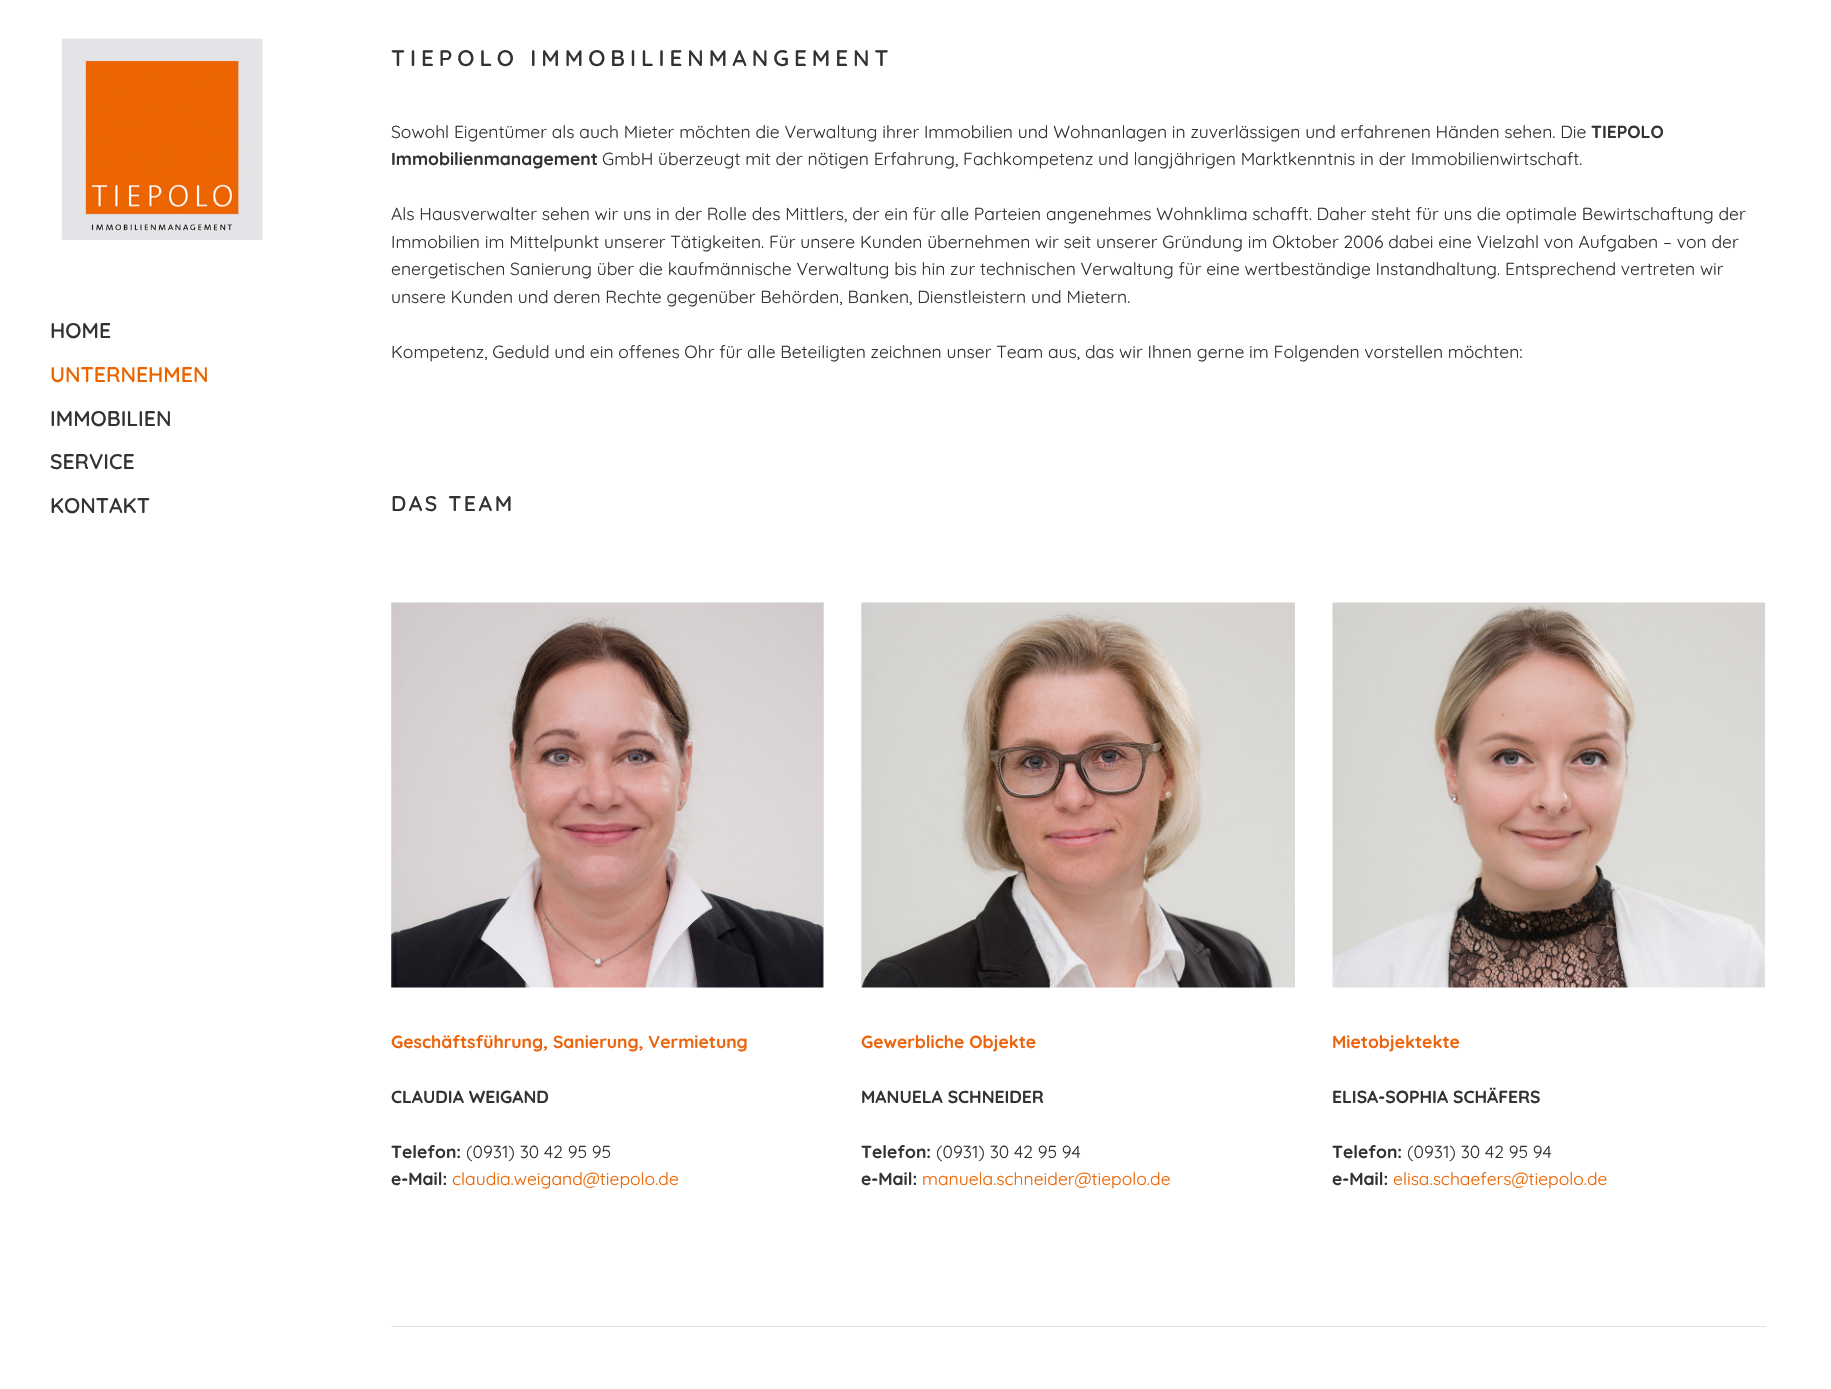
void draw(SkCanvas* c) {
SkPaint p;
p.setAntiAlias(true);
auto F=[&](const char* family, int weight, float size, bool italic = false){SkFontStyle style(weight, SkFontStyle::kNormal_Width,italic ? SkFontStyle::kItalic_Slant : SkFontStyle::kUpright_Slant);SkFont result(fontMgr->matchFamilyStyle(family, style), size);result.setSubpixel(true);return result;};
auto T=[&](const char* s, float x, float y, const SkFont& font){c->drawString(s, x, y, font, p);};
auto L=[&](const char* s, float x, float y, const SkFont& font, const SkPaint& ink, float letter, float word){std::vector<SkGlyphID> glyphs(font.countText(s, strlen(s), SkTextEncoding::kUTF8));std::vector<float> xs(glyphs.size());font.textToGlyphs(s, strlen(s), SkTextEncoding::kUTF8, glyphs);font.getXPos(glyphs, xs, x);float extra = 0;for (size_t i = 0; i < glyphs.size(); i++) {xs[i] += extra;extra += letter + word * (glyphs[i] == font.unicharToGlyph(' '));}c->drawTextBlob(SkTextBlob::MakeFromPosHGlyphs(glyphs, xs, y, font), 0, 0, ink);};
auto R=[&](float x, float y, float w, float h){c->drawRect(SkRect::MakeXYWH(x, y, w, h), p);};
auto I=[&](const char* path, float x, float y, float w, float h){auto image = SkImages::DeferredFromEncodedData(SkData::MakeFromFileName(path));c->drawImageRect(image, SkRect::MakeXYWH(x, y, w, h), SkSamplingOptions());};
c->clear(0xffffffff);
I("1.png",61,38,202,202);
auto f1 = F("Quicksand",600,21.25);
p.setColor(0xff333333);
T("HOME",50,338,f1);
p.setColor(0xffeb6400);
T("UNTERNEHMEN",50,382,f1);
p.setColor(0xff333333);
T("IMMOBILIEN",50,426,f1);
T("SERVICE",50,469,f1);
T("KONTAKT",50,513,f1);
auto f2 = F("Quicksand",600,22.5);
L("TIEPOLO IMMOBILIENMANGEMENT",391,66,f2,p,5,0);
auto f3 = F("Quicksand",300,17.5);
T("Sowohl Eigentümer als auch Mieter möchten die Verwaltung ihrer Immobilien und Wohnanlagen in zuverlässigen und erfahrenen Händen sehen. Die",391,138,f3);
auto f4 = F("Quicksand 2",300,17.5);
T("TIEPOLO",1591,138,f4);
T("Immobilienmanagement",391,165,f4);
T("GmbH überzeugt mit der nötigen Erfahrung, Fachkompetenz und langjährigen Marktkenntnis in der Immobilienwirtschaft.",602,165,f3);
T("Als Hausverwalter sehen wir uns in der Rolle des Mittlers, der ein für alle Parteien angenehmes Wohnklima schafft. Daher steht für uns die optimale Bewirtschaftung der",391,220,f3);
T("Immobilien im Mittelpunkt unserer Tätigkeiten. Für unsere Kunden übernehmen wir seit unserer Gründung im Oktober 2006 dabei eine Vielzahl von Aufgaben – von der",391,248,f3);
T("energetischen Sanierung über die kaufmännische Verwaltung bis hin zur technischen Verwaltung für eine wertbeständige Instandhaltung. Entsprechend vertreten wir",391,275,f3);
T("unsere Kunden und deren Rechte gegenüber Behörden, Banken, Dienstleistern und Mietern.",391,303,f3);
T("Kompetenz, Geduld und ein offenes Ohr für alle Beteiligten zeichnen unser Team aus, das wir Ihnen gerne im Folgenden vorstellen möchten:",391,358,f3);
L("DAS TEAM",391,511,f1,p,2.5,0);
I("2.png",391,602,433,386);
p.setColor(0xffeb650e);
T("Geschäftsführung, Sanierung, Vermietung",391,1048,f4);
p.setColor(0xff333333);
T("CLAUDIA WEIGAND",391,1103,f4);
T("Telefon:",391,1158,f4);
T("(0931) 30 42 95 95",466,1158,f3);
T("e-Mail:",391,1185,f4);
p.setColor(0xffeb6400);
T("claudia.weigand@tiepolo.de",452,1185,f3);
I("3.png",861,602,434,386);
p.setColor(0xffeb650e);
T("Gewerbliche Objekte",861,1048,f4);
p.setColor(0xff333333);
T("MANUELA SCHNEIDER",861,1103,f4);
T("Telefon:",861,1158,f4);
T("(0931) 30 42 95 94",936,1158,f3);
T("e-Mail:",861,1185,f4);
p.setColor(0xffeb6400);
T("manuela.schneider@tiepolo.de",922,1185,f3);
I("4.png",1332,602,433,386);
p.setColor(0xffeb650e);
T("Mietobjektekte",1332,1048,f4);
p.setColor(0xff333333);
T("ELISA-SOPHIA SCHÄFERS",1332,1103,f4);
T("Telefon:",1332,1158,f4);
T("(0931) 30 42 95 94",1407,1158,f3);
T("e-Mail:",1332,1185,f4);
p.setColor(0xffeb6400);
T("elisa.schaefers@tiepolo.de",1393,1185,f3);
p.setColor(0xffe1e4e7);
R(391,1326,1375,1);
}
